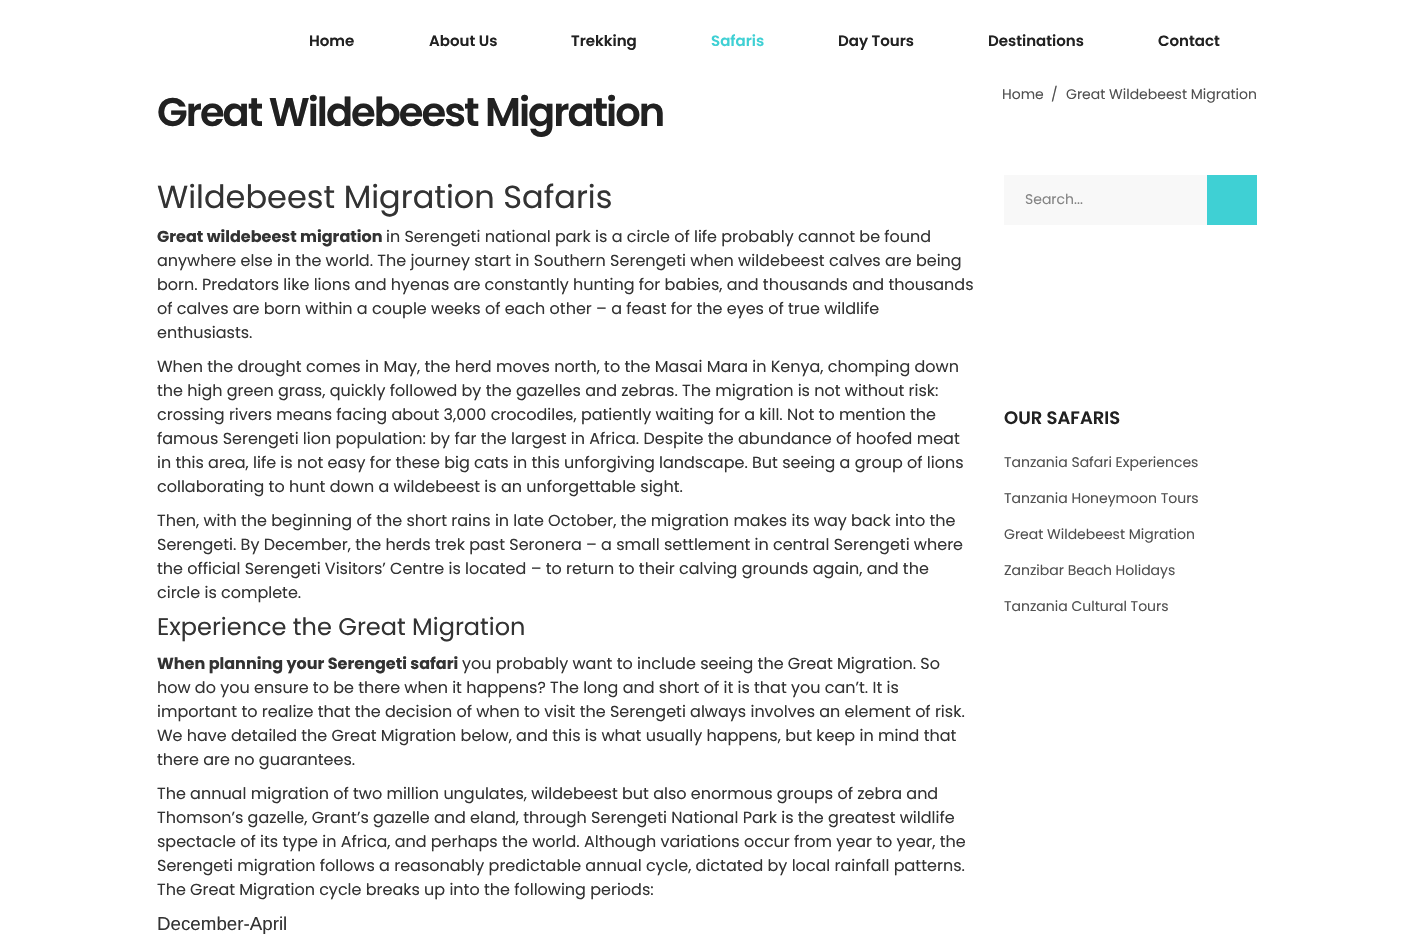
void draw(SkCanvas* c) {
SkPaint p;
p.setAntiAlias(true);
auto F=[&](const char* family, int weight, float size, bool italic = false){SkFontStyle style(weight, SkFontStyle::kNormal_Width,italic ? SkFontStyle::kItalic_Slant : SkFontStyle::kUpright_Slant);SkFont result(fontMgr->matchFamilyStyle(family, style), size);result.setSubpixel(true);return result;};
auto T=[&](const char* s, float x, float y, const SkFont& font){c->drawString(s, x, y, font, p);};
auto L=[&](const char* s, float x, float y, const SkFont& font, const SkPaint& ink, float letter, float word){std::vector<SkGlyphID> glyphs(font.countText(s, strlen(s), SkTextEncoding::kUTF8));std::vector<float> xs(glyphs.size());font.textToGlyphs(s, strlen(s), SkTextEncoding::kUTF8, glyphs);font.getXPos(glyphs, xs, x);float extra = 0;for (size_t i = 0; i < glyphs.size(); i++) {xs[i] += extra;extra += letter + word * (glyphs[i] == font.unicharToGlyph(' '));}c->drawTextBlob(SkTextBlob::MakeFromPosHGlyphs(glyphs, xs, y, font), 0, 0, ink);};
auto R=[&](float x, float y, float w, float h){c->drawRect(SkRect::MakeXYWH(x, y, w, h), p);};
c->clear(0xffffffff);
auto f1 = F("Poppins",600,15);
p.setColor(0xff212121);
T("Home",309,46,f1);
T("About Us",429,46,f1);
T("Trekking",571,46,f1);
p.setColor(0xff3fd0d4);
T("Safaris",711,46,f1);
p.setColor(0xff212121);
T("Day Tours",838,46,f1);
T("Destinations",988,46,f1);
T("Contact",1158,46,f1);
auto f2 = F("Poppins",600,40);
L("Great Wildebeest Migration",157,126,f2,p,-2,0);
auto f3 = F("Poppins",400,14);
p.setColor(0xff505050);
T("Home",1002,99,f3);
T("/",1051,99,f3);
T("Great Wildebeest Migration",1066,99,f3);
auto f4 = F("Poppins",400,32);
p.setColor(0xff333333);
T("Wildebeest Migration Safaris",157,208,f4);
auto f5 = F("Poppins",700,16);
T("Great wildebeest migration",157,242,f5);
auto f6 = F("Poppins",400,16);
T("in Serengeti national park is a circle of life probably cannot be found",386,242,f6);
T("anywhere else in the world. The journey start in Southern Serengeti when wildebeest calves are being",157,266,f6);
T("born. Predators like lions and hyenas are constantly hunting for babies, and thousands and thousands",157,290,f6);
T("of calves are born within a couple weeks of each other – a feast for the eyes of true wildlife",157,314,f6);
T("enthusiasts.",157,338,f6);
T("When the drought comes in May, the herd moves north, to the Masai Mara in Kenya, chomping down",157,372,f6);
T("the high green grass, quickly followed by the gazelles and zebras. The migration is not without risk:",157,396,f6);
T("crossing rivers means facing about 3,000 crocodiles, patiently waiting for a kill. Not to mention the",157,420,f6);
T("famous Serengeti lion population: by far the largest in Africa. Despite the abundance of hoofed meat",157,444,f6);
T("in this area, life is not easy for these big cats in this unforgiving landscape. But seeing a group of lions",157,468,f6);
T("collaborating to hunt down a wildebeest is an unforgettable sight.",157,492,f6);
T("Then, with the beginning of the short rains in late October, the migration makes its way back into the",157,526,f6);
T("Serengeti. By December, the herds trek past Seronera – a small settlement in central Serengeti where",157,550,f6);
T("the official Serengeti Visitors’ Centre is located – to return to their calving grounds again, and the",157,574,f6);
T("circle is complete.",157,598,f6);
auto f7 = F("Poppins",400,24);
T("Experience the Great Migration",157,635,f7);
T("When planning your Serengeti safari",157,669,f5);
T("you probably want to include seeing the Great Migration. So",462,669,f6);
T("how do you ensure to be there when it happens? The long and short of it is that you can’t. It is",157,693,f6);
T("important to realize that the decision of when to visit the Serengeti always involves an element of risk.",157,717,f6);
T("We have detailed the Great Migration below, and this is what usually happens, but keep in mind that",157,741,f6);
T("there are no guarantees.",157,765,f6);
T("The annual migration of two million ungulates, wildebeest but also enormous groups of zebra and",157,799,f6);
T("Thomson’s gazelle, Grant’s gazelle and eland, through Serengeti National Park is the greatest wildlife",157,823,f6);
T("spectacle of its type in Africa, and perhaps the world. Although variations occur from year to year, the",157,847,f6);
T("Serengeti migration follows a reasonably predictable annual cycle, dictated by local rainfall patterns.",157,871,f6);
T("The Great Migration cycle breaks up into the following periods:",157,895,f6);
auto f8 = F("Liberation Sans",400,18.75);
T("December-April",157,930,f8);
p.setColor(0xfff8f8f8);
R(1004,175,203,50);
p.setColor(0xff848484);
T("Search...",1025,204,f3);
p.setColor(0xff3fd0d4);
R(1207,175,50,50);
auto f9 = F("Poppins",600,18);
p.setColor(0xff212121);
T("OUR SAFARIS",1004,424,f9);
p.setColor(0xff505050);
T("Tanzania Safari Experiences",1004,467,f3);
T("Tanzania Honeymoon Tours",1004,503,f3);
T("Great Wildebeest Migration",1004,539,f3);
T("Zanzibar Beach Holidays",1004,575,f3);
T("Tanzania Cultural Tours",1004,611,f3);
}
